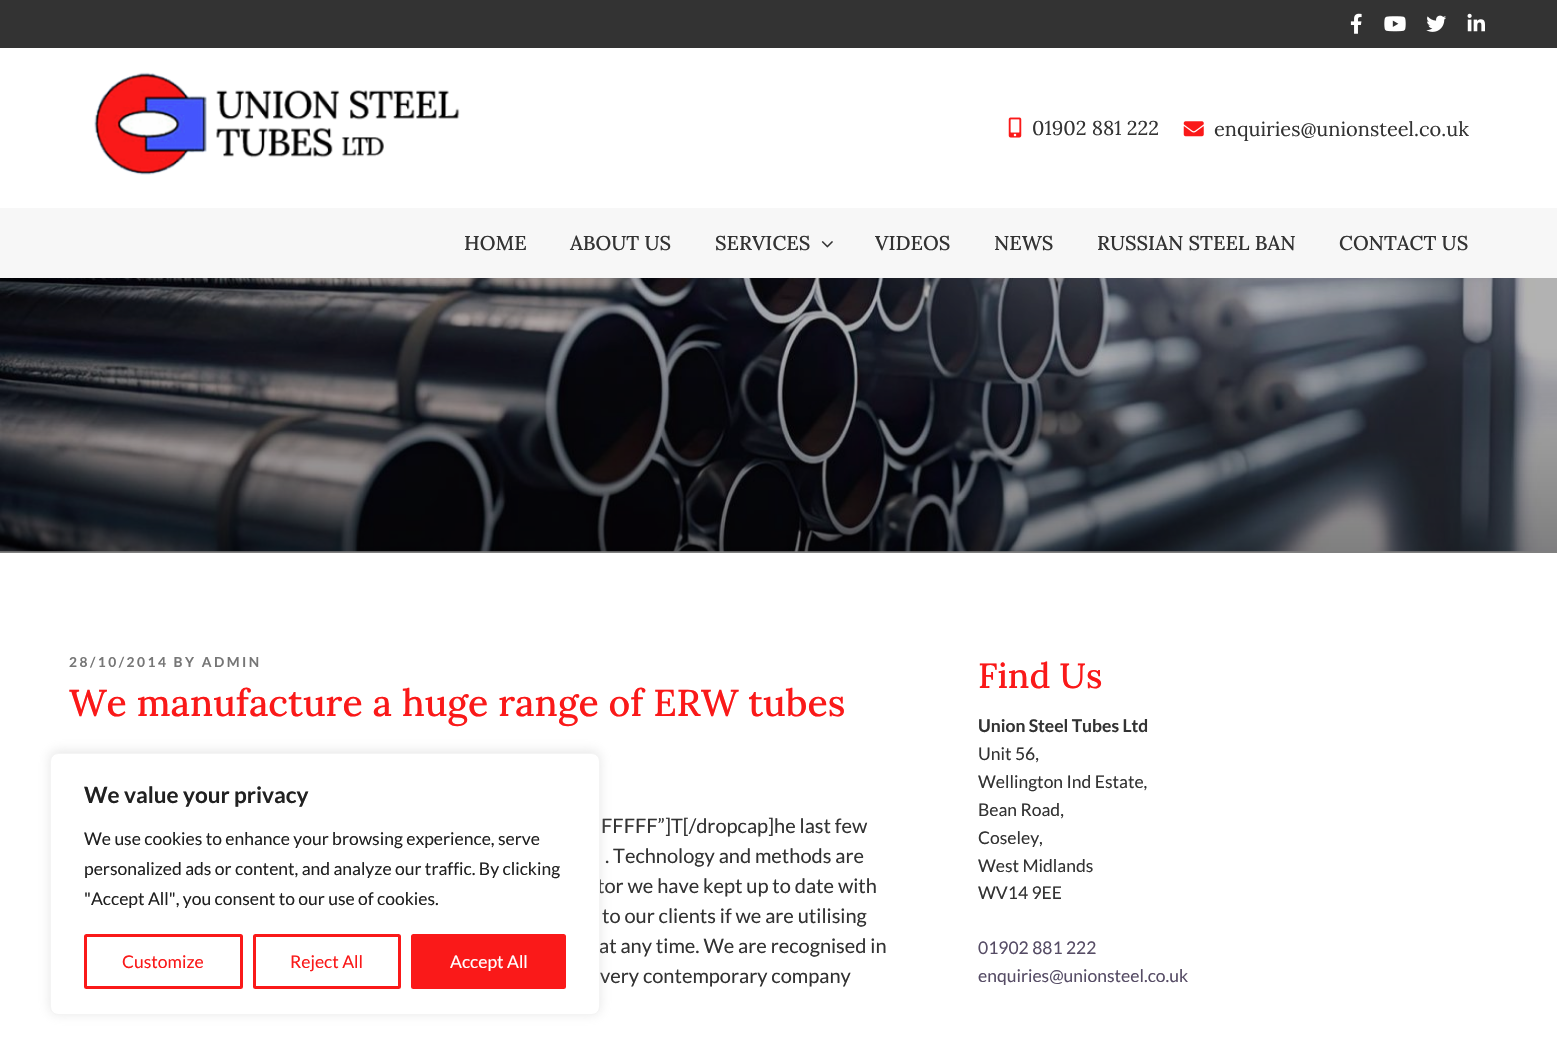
void draw(SkCanvas* c) {
SkPaint p;
p.setAntiAlias(true);
auto F=[&](const char* family, int weight, float size, bool italic = false){SkFontStyle style(weight, SkFontStyle::kNormal_Width,italic ? SkFontStyle::kItalic_Slant : SkFontStyle::kUpright_Slant);SkFont result(fontMgr->matchFamilyStyle(family, style), size);result.setSubpixel(true);return result;};
auto T=[&](const char* s, float x, float y, const SkFont& font){c->drawString(s, x, y, font, p);};
auto L=[&](const char* s, float x, float y, const SkFont& font, const SkPaint& ink, float letter, float word){std::vector<SkGlyphID> glyphs(font.countText(s, strlen(s), SkTextEncoding::kUTF8));std::vector<float> xs(glyphs.size());font.textToGlyphs(s, strlen(s), SkTextEncoding::kUTF8, glyphs);font.getXPos(glyphs, xs, x);float extra = 0;for (size_t i = 0; i < glyphs.size(); i++) {xs[i] += extra;extra += letter + word * (glyphs[i] == font.unicharToGlyph(' '));}c->drawTextBlob(SkTextBlob::MakeFromPosHGlyphs(glyphs, xs, y, font), 0, 0, ink);};
auto R=[&](float x, float y, float w, float h){c->drawRect(SkRect::MakeXYWH(x, y, w, h), p);};
auto I=[&](const char* path, float x, float y, float w, float h){auto image = SkImages::DeferredFromEncodedData(SkData::MakeFromFileName(path));c->drawImageRect(image, SkRect::MakeXYWH(x, y, w, h), SkSamplingOptions());};
c->clear(0xffffffff);
p.setColor(0xff333333);
R(0,0,1557,48);
I("1.png",1350,13,12,21);
I("2.png",1384,16,22,16);
I("3.png",1426,15,21,17);
I("4.png",1467,13,18,19);
I("5.png",94,72,366,103);
I("6.png",1008,117,14,21);
auto f1 = F("Lora",400,20);
T("01902 881 222",1032,135,f1);
I("7.png",1183,121,21,16);
T("enquiries@unionsteel.co.uk",1214,136,f1);
p.setColor(0xfff7f7f7);
R(0,208,1557,70);
auto f2 = F("Lora",500,20);
p.setColor(0xff333333);
T("HOME",464,250,f2);
T("ABOUT US",570,250,f2);
T("SERVICES",715,250,f2);
I("8.png",821,241,12,7);
T("VIDEOS",875,250,f2);
T("NEWS",994,250,f2);
T("RUSSIAN STEEL BAN",1097,250,f2);
T("CONTACT US",1339,250,f2);
I("9.png",0,278,1557,274);
{
const SkColor colors[] = {0x80000000,0x4d000000,0x4d000000};
const float stops[] = {0,.75,1};
const SkPoint ends[] = {{779,553}, {779,278}};
p.setShader(SkGradientShader::MakeLinear(ends, colors, stops, 3, SkTileMode::kClamp));
p.setAlpha(255);
}
R(0,278,1557,275);
auto f3 = F("Lato",700,13.75);
p.setShader(nullptr);
p.setColor(0xff767676);
L("28/10/2014 BY ADMIN",69,667,f3,p,2.5,0);
auto f4 = F("Lora",500,37.5);
p.setColor(0xfffa1919);
T("We manufacture a huge range of ERW tubes",69,716,f4);
auto f5 = F("Lato",400,20);
p.setColor(0xff333333);
T("FFFFF”]T[/dropcap]he last few",601,833,f5);
T(". Technology and methods are",605,863,f5);
T("tor we have kept up to date with",597,893,f5);
T("to our clients if we are utilising",602,923,f5);
T("at any time. We are recognised in",599,953,f5);
T("very contemporary company",600,983,f5);
auto f6 = F("Lora",500,35);
p.setColor(0xfffa1919);
T("Find Us",978,688,f6);
auto f7 = F("Lato",700,17.5);
p.setColor(0xff333333);
T("Union Steel Tubes Ltd",978,732,f7);
auto f8 = F("Lato",400,17.5);
T("Unit 56,",978,760,f8);
T("Wellington Ind Estate,",978,788,f8);
T("Bean Road,",978,816,f8);
T("Coseley,",978,844,f8);
T("West Midlands",978,872,f8);
T("WV14 9EE",978,899,f8);
p.setColor(0xff564c65);
T("01902 881 222",978,954,f8);
T("enquiries@unionsteel.co.uk",978,982,f8);
p.setColor(0x4dacabab);
p.setMaskFilter(SkMaskFilter::MakeBlur(kNormal_SkBlurStyle, 6));
c->drawRoundRect(SkRect::MakeXYWH(50,751,550,263),8,8,p);
p.setMaskFilter(nullptr);
p.setColor(0xffffffff);
c->drawRoundRect(SkRect::MakeXYWH(50.5,753.5,549,261),7.5,7.5,p);
p.setStroke(true);
p.setStrokeWidth(1);
p.setColor(0xfff4f4f4);
c->drawRoundRect(SkRect::MakeXYWH(50.5,753.5,549,261),7.5,7.5,p);
auto f9 = F("Lato",700,22.5);
p.setStroke(false);
p.setColor(0xff212121);
T("We value your privacy",84,803,f9);
T("We use cookies to enhance your browsing experience, serve",84,845,f8);
T("personalized ads or content, and analyze our traffic. By clicking",84,875,f8);
T("\"Accept All\", you consent to our use of cookies.",84,905,f8);
p.setStroke(true);
p.setStrokeWidth(3);
p.setColor(0xfffa1919);
c->drawRoundRect(SkRect::MakeXYWH(85.5,935.5,156,52),1,1,p);
p.setStroke(false);
T("Customize",122,968,f8);
p.setStroke(true);
c->drawRoundRect(SkRect::MakeXYWH(254.5,935.5,145,52),1,1,p);
p.setStroke(false);
T("Reject All",290,968,f8);
c->drawRoundRect(SkRect::MakeXYWH(412.5,935.5,152,52),1,1,p);
p.setStroke(true);
c->drawRoundRect(SkRect::MakeXYWH(412.5,935.5,152,52),1,1,p);
p.setStroke(false);
p.setColor(0xffffffff);
T("Accept All",450,968,f8);
}
